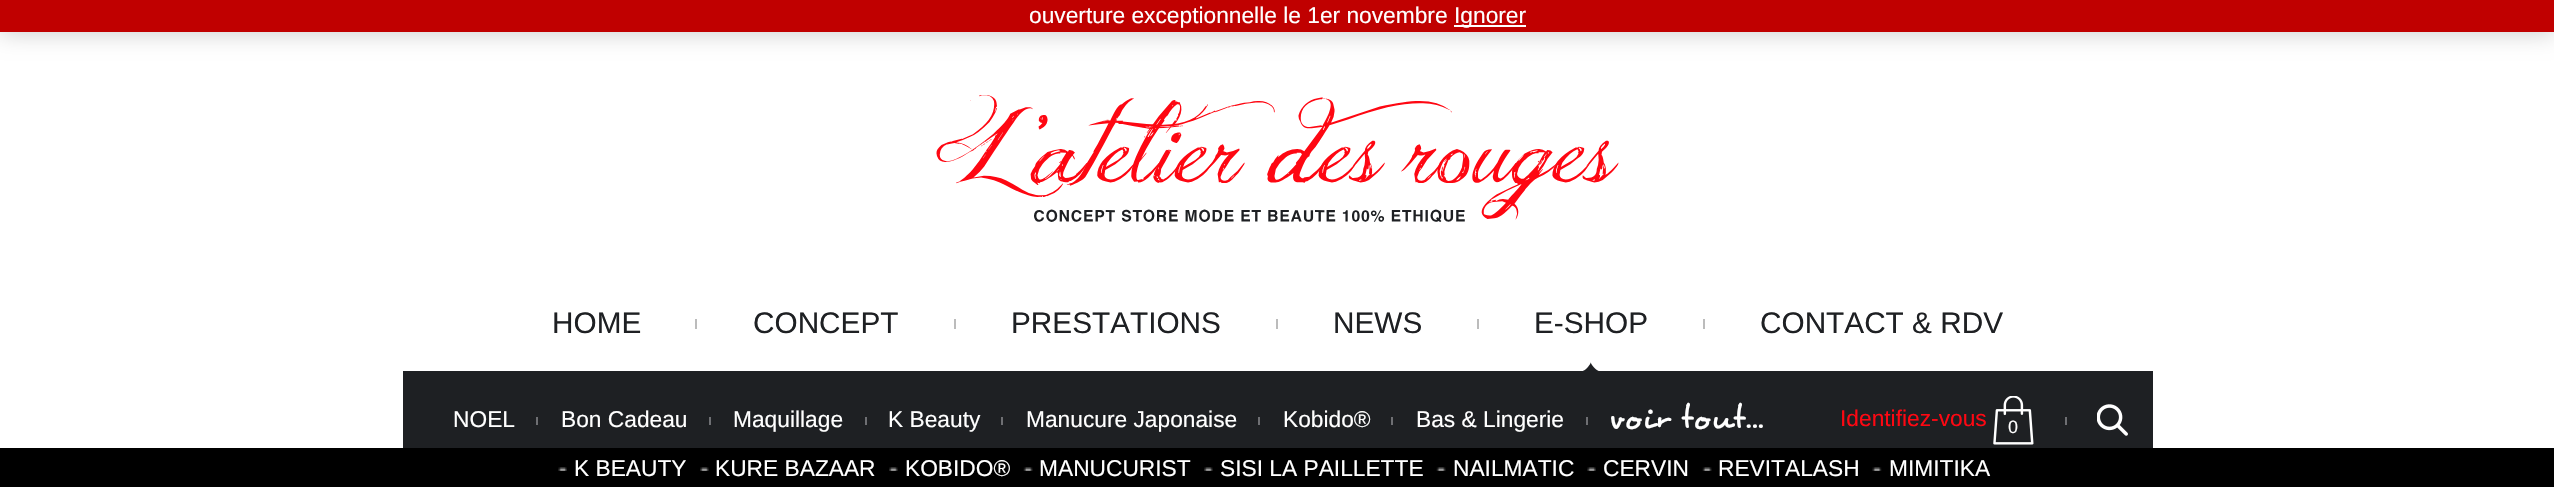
void draw(SkCanvas* c) {
SkPaint p;
p.setAntiAlias(true);
auto F=[&](const char* family, int weight, float size, bool italic = false){SkFontStyle style(weight, SkFontStyle::kNormal_Width,italic ? SkFontStyle::kItalic_Slant : SkFontStyle::kUpright_Slant);SkFont result(fontMgr->matchFamilyStyle(family, style), size);result.setSubpixel(true);return result;};
auto T=[&](const char* s, float x, float y, const SkFont& font){c->drawString(s, x, y, font, p);};
auto R=[&](float x, float y, float w, float h){c->drawRect(SkRect::MakeXYWH(x, y, w, h), p);};
auto I=[&](const char* path, float x, float y, float w, float h){auto image = SkImages::DeferredFromEncodedData(SkData::MakeFromFileName(path));c->drawImageRect(image, SkRect::MakeXYWH(x, y, w, h), SkSamplingOptions());};
c->clear(0xffffffff);
p.setColor(0x33000000);
p.setMaskFilter(SkMaskFilter::MakeBlur(kNormal_SkBlurStyle, 11.5));
c->drawRect(SkRect::MakeXYWH(0,2,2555,31),p);
p.setMaskFilter(nullptr);
p.setColor(0xffc00000);
R(0,0,2554,32);
auto f1 = F("Liberation Sans",400,22.75);
p.setColor(0xffffffff);
T("ouverture exceptionnelle le 1er novembre",1029,23,f1);
R(1454,25,72,2);
T("Ignorer",1454,23,f1);
I("1.png",936,95,683,127);
auto f2 = F("Liberation Sans",400,29.75);
p.setColor(0xff1e2023);
T("HOME",552,333,f2);
p.setColor(0xffbcbcbc);
R(695,319,2,10);
p.setColor(0xff1e2023);
T("CONCEPT",753,333,f2);
p.setColor(0xffbcbcbc);
R(954,319,2,10);
p.setColor(0xff1e2023);
T("PRESTATIONS",1011,333,f2);
p.setColor(0xffbcbcbc);
R(1276,319,2,10);
p.setColor(0xff1e2023);
T("NEWS",1333,333,f2);
p.setColor(0xffbcbcbc);
R(1477,319,2,10);
p.setColor(0xff1e2023);
T("E-SHOP",1534,333,f2);
I("2.png",1583,362,16,9);
p.setColor(0xffbcbcbc);
R(1703,319,2,10);
p.setColor(0xff1e2023);
T("CONTACT & RDV",1760,333,f2);
R(403,371,1750,77);
p.setColor(0xffffffff);
T("NOEL",453,427,f1);
p.setColor(0xff6e6f73);
R(536,417,2,8);
p.setColor(0xffffffff);
T("Bon Cadeau",561,427,f1);
p.setColor(0xff6e6f73);
R(709,417,2,8);
p.setColor(0xffffffff);
T("Maquillage",733,427,f1);
p.setColor(0xff6e6f73);
R(865,417,2,8);
p.setColor(0xffffffff);
T("K Beauty",888,427,f1);
p.setColor(0xff6e6f73);
R(1001,417,2,8);
p.setColor(0xffffffff);
T("Manucure Japonaise",1026,427,f1);
p.setColor(0xff6e6f73);
R(1258,417,2,8);
p.setColor(0xffffffff);
T("Kobido®",1283,427,f1);
p.setColor(0xff6e6f73);
R(1391,417,2,8);
p.setColor(0xffffffff);
T("Bas & Lingerie",1416,427,f1);
p.setColor(0xff6e6f73);
R(1586,417,2,8);
auto f3 = F("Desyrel",400,33.25);
p.setColor(0xffffffff);
T("voir tout…",1609,427,f3);
p.setColor(0xfffe0712);
T("Identifiez-vous",1840,426,f1);
I("3.png",1993,396,41,49);
auto f4 = F("Liberation Sans",400,18);
p.setColor(0xffffffff);
T("0",2008,433,f4);
p.setColor(0xff6e6f73);
R(2065,417,2,8);
I("4.png",2097,404,31,32);
p.setColor(0xff000000);
R(0,448,2554,39);
I("5.png",558,467,9,4);
p.setColor(0xffffffff);
T("K BEAUTY",574,476,f1);
I("6.png",700,467,9,4);
T("KURE BAZAAR",715,476,f1);
I("6.png",889,467,9,4);
T("KOBIDO®",905,476,f1);
I("7.png",1023,467,10,4);
T("MANUCURIST",1039,476,f1);
I("6.png",1204,467,9,4);
T("SISI LA PAILLETTE",1220,476,f1);
I("8.png",1436,467,10,4);
T("NAILMATIC",1453,476,f1);
I("5.png",1587,467,9,4);
T("CERVIN",1603,476,f1);
I("8.png",1702,467,10,4);
T("REVITALASH",1718,476,f1);
I("9.png",1872,467,10,4);
T("MIMITIKA",1889,476,f1);
}
